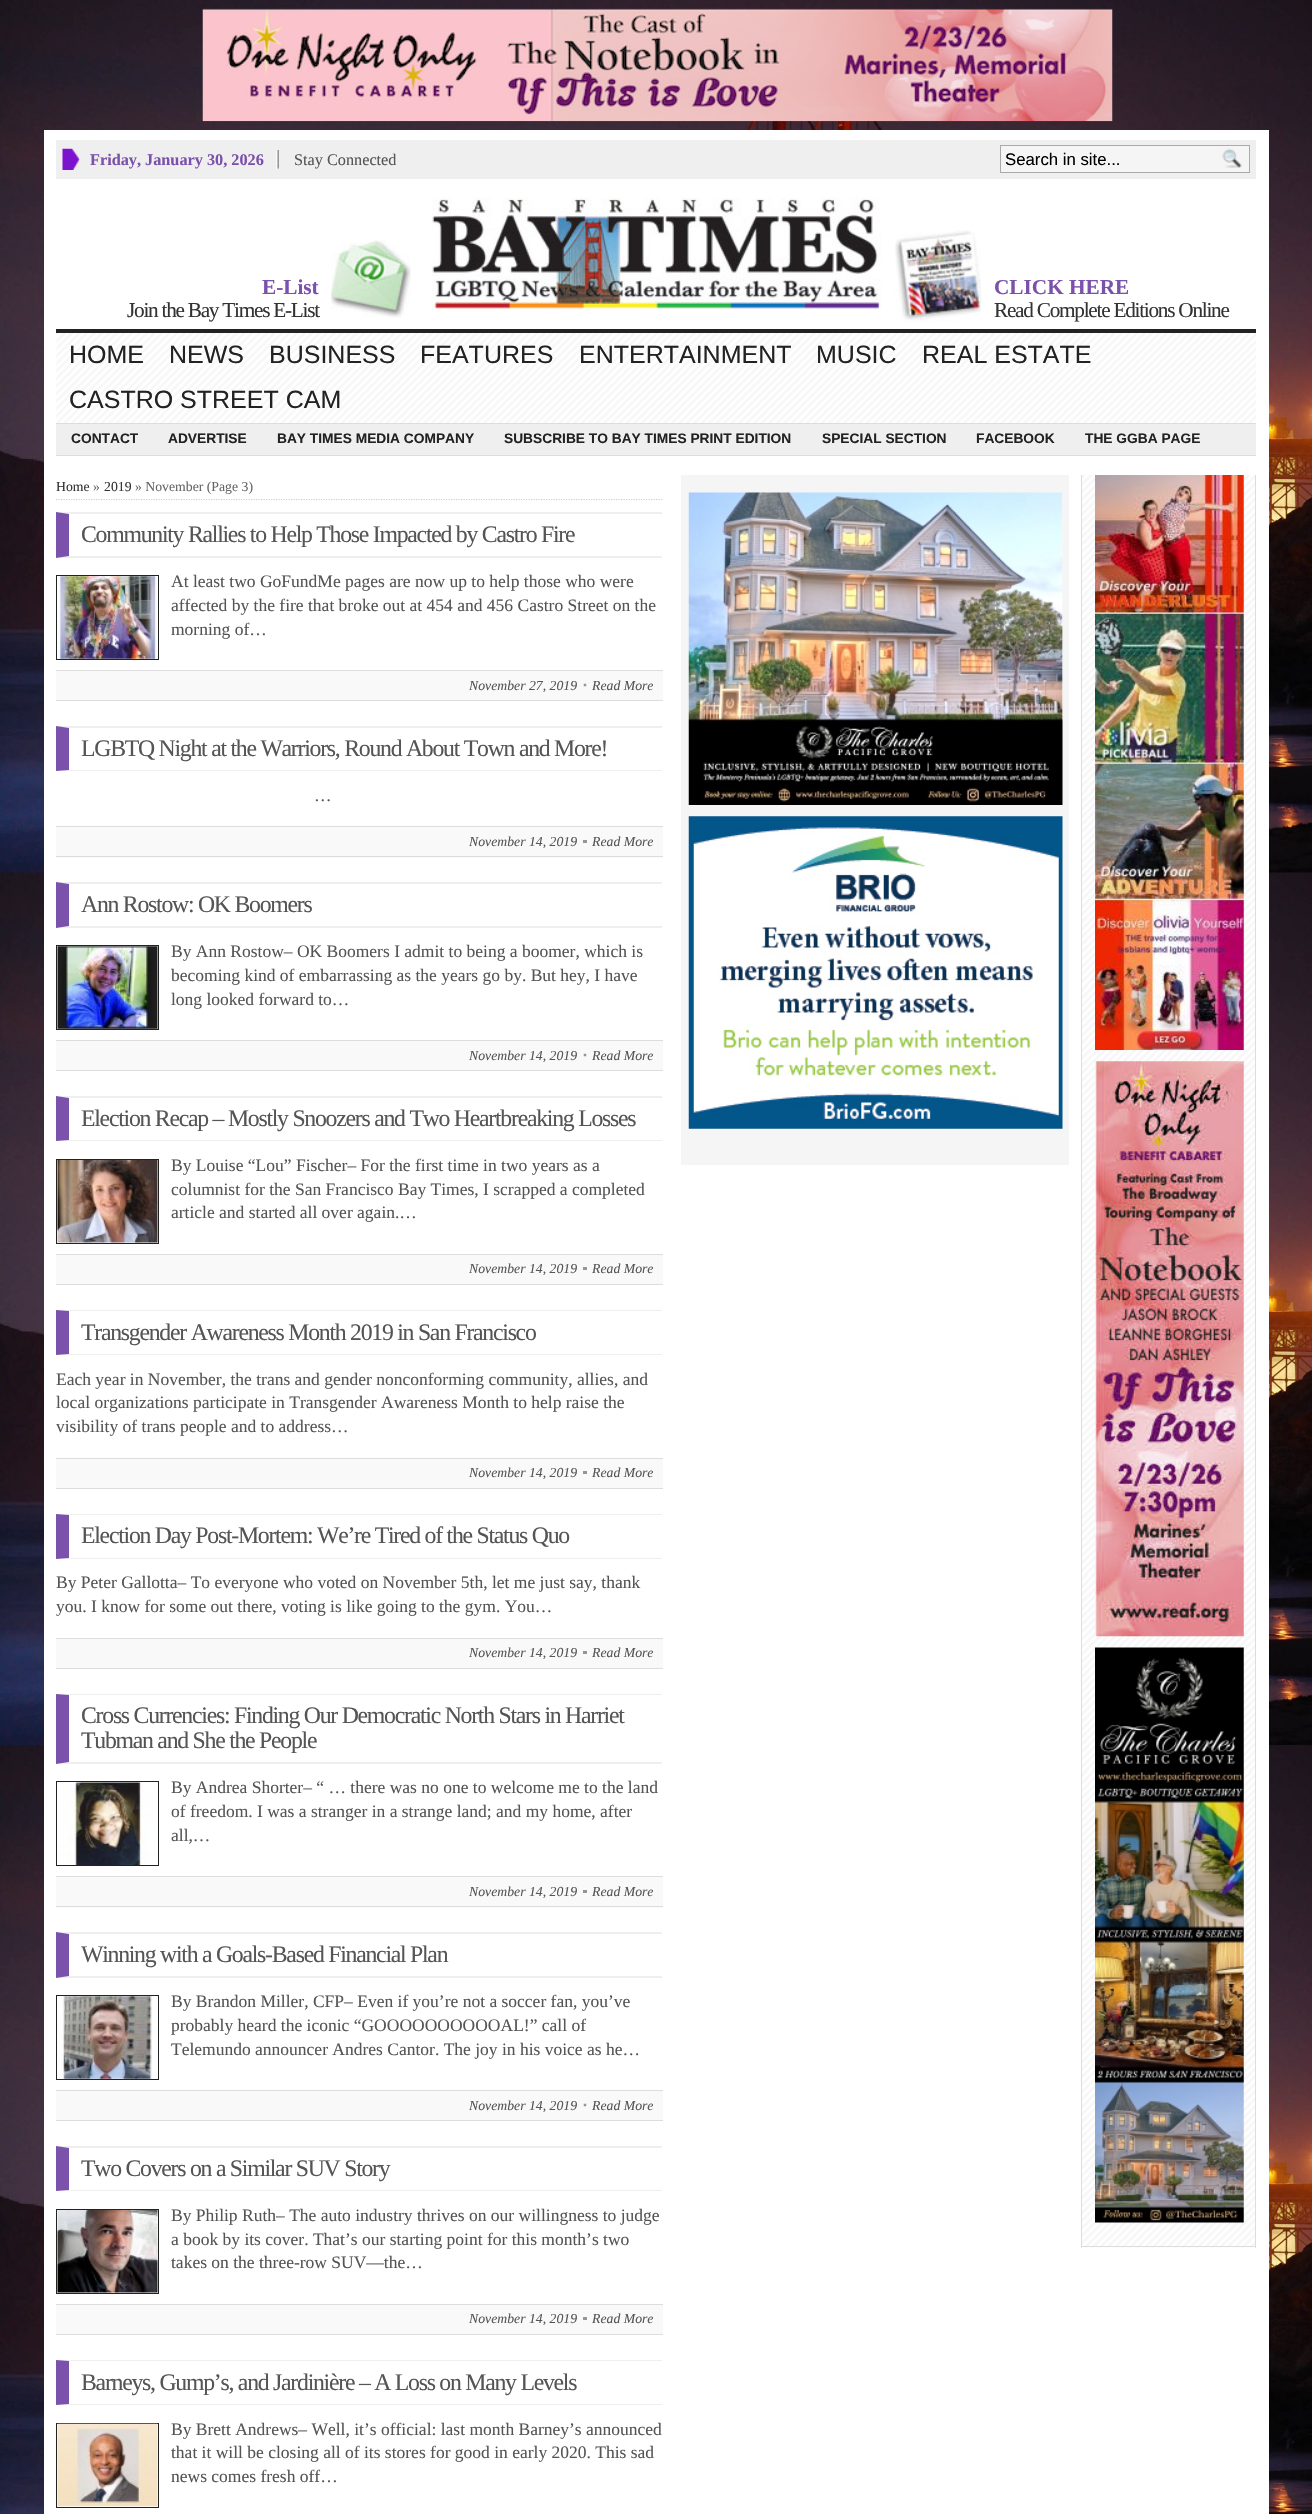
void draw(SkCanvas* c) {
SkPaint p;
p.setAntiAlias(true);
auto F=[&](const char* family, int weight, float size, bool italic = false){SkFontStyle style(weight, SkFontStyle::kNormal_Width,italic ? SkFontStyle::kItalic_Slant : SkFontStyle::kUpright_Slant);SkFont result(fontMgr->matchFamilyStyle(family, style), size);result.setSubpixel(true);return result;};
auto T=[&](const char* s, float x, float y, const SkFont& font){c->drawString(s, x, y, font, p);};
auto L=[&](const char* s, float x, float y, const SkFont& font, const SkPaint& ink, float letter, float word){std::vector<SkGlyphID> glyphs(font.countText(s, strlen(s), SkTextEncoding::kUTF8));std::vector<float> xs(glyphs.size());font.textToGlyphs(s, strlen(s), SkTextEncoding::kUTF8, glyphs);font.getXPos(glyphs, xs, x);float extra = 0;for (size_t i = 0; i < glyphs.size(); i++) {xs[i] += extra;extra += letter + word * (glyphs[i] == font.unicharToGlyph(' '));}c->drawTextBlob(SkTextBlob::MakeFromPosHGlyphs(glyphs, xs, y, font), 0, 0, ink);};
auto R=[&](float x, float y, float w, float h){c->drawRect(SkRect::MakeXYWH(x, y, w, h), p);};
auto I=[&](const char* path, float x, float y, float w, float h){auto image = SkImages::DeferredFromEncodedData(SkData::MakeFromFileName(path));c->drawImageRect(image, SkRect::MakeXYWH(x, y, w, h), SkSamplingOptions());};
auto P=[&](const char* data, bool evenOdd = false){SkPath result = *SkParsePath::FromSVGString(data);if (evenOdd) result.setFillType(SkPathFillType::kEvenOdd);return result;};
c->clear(0xffffffff);
I("1.png",0,0,1312,2514);
I("2.png",202,8,911,114);
p.setColor(0xffffffff);
R(44,130,1225,2384);
p.setColor(0xffefefef);
R(56,140,1200,39);
I("3.png",62,148,19,22);
I("4.png",276,150,3,19);
auto f1 = F("Liberation Serif",700,16.25);
p.setColor(0xff7b52ab);
T("Friday, January 30, 2026",90,165,f1);
auto f2 = F("Liberation Serif",400,16.25);
p.setColor(0xff555555);
T("Stay Connected",294,165,f2);
p.setColor(0xfff5f5f5);
c->drawRect(SkRect::MakeXYWH(1000.5,145.5,249,27),p);
p.setStroke(true);
p.setStrokeWidth(1);
p.setColor(0xffaaaaaa);
c->drawRect(SkRect::MakeXYWH(1000.5,145.5,249,27),p);
auto f3 = F("Liberation Sans",400,16.75);
p.setStroke(false);
p.setColor(0xff000000);
T("Search in site...",1005,165,f3);
I("5.png",1222,148,20,20);
p.setColor(0xff222222);
R(56,329,1200,4);
auto f4 = F("Liberation Serif",700,21.25);
p.setColor(0xff7b52ab);
T("E-List",262,294,f4);
auto f5 = F("Liberation Serif",400,21.25);
p.setColor(0xff333333);
L("Join the Bay Times E-List",127,317,f5,p,-1.25,0);
I("6.png",331,240,80,78);
I("7.png",431,197,450,113);
I("8.png",895,230,87,93);
p.setColor(0xff7b52ab);
T("CLICK HERE",994,294,f4);
p.setColor(0xff333333);
L("Read Complete Editions Online",994,317,f5,p,-1.25,0);
I("9.png",56,333,1200,90);
p.setColor(0xffdddddd);
R(56,423,1200,1);
auto f6 = F("Liberation Sans",400,25);
p.setColor(0xff222222);
T("HOME",69,363,f6);
T("NEWS",169,363,f6);
T("BUSINESS",269,363,f6);
T("FEATURES",420,363,f6);
T("ENTERTAINMENT",579,363,f6);
T("MUSIC",816,363,f6);
T("REAL ESTATE",922,363,f6);
T("CASTRO STREET CAM",69,408,f6);
p.setColor(0xffefefef);
R(56,424,1200,31);
p.setColor(0xffdddddd);
R(56,455,1200,1);
auto f7 = F("Liberation Sans",700,13.75);
p.setColor(0xff222222);
T("CONTACT",71,443,f7);
T("ADVERTISE",168,443,f7);
T("BAY TIMES MEDIA COMPANY",277,443,f7);
T("SUBSCRIBE TO BAY TIMES PRINT EDITION",504,443,f7);
T("SPECIAL SECTION",822,443,f7);
T("FACEBOOK",976,443,f7);
T("THE GGBA PAGE",1085,443,f7);
p.setStroke(true);
p.setStrokeWidth(1.2);
p.setColor(0xffcccccc);
p.setPathEffect(SkDashPathEffect::Make({{1.25f,1.25f}}, 0));
c->drawPath(P("M56 499.5h606.5"),p);
p.setPathEffect(nullptr);
auto f8 = F("Liberation Serif",400,13.75);
p.setStroke(false);
p.setColor(0xff333333);
T("Home",56,491,f8);
p.setColor(0xff666666);
T("»",93,491,f8);
p.setColor(0xff333333);
T("2019",104,491,f8);
p.setColor(0xff666666);
T("» November (Page 3)",135,491,f8);
p.setColor(0xffefefef);
c->drawPath(P("M56 512h606v2h-593z"),p);
c->drawPath(P("M662 558h-606l13-2h593z"),p);
p.setColor(0xff7b52ab);
c->drawPath(P("M56 558v-46l13 2v42z"),p);
auto f9 = F("Liberation Serif",400,23.75);
p.setColor(0xff555555);
L("Community Rallies to Help Those Impacted by Castro Fire",81,542,f9,p,-1.25,0);
p.setStroke(true);
p.setStrokeWidth(1);
p.setColor(0xff222222);
c->drawRect(SkRect::MakeXYWH(56.5,575.5,102,84),p);
I("10.png",57,576,101,83);
auto f10 = F("Liberation Serif",400,17.5);
p.setStroke(false);
p.setColor(0xff555555);
T("At least two GoFundMe pages are now up to help those who were",171,587,f10);
T("affected by the fire that broke out at 454 and 456 Castro Street on the",171,611,f10);
T("morning of…",171,635,f10);
p.setColor(0xfff9f9f9);
R(56,671,607,29);
p.setColor(0xffdddddd);
R(56,670,607,1);
R(56,700,607,1);
auto f11 = F("Liberation Serif",400,13.75,true);
p.setColor(0xff555555);
T("November 27, 2019",469,690,f11);
I("11.png",583,683,4,4);
T("Read More",592,690,f11);
p.setColor(0xffefefef);
c->drawPath(P("M56 726h606v2h-593z"),p);
c->drawPath(P("M662 771h-606l13-1h593z"),p);
p.setColor(0xff7b52ab);
c->drawPath(P("M56 771v-45l13 2v42z"),p);
p.setColor(0xff555555);
L("LGBTQ Night at the Warriors, Round About Town and More!",81,756,f9,p,-1.25,0);
T("…",314,801,f10);
p.setColor(0xfff9f9f9);
R(56,827,607,31);
p.setColor(0xffdddddd);
R(56,826,607,1);
R(56,856,607,1);
p.setColor(0xff555555);
T("November 14, 2019",469,846,f11);
T("Read More",592,846,f11);
p.setColor(0xff959595);
R(583,840,4,3);
p.setColor(0xffefefef);
c->drawPath(P("M56 882h606v2h-593z"),p);
c->drawPath(P("M662 928h-606l13-2h593z"),p);
p.setColor(0xff7b52ab);
c->drawPath(P("M56 928v-46l13 2v42z"),p);
p.setColor(0xff555555);
L("Ann Rostow: OK Boomers",81,912,f9,p,-1.25,0);
p.setStroke(true);
p.setColor(0xff222222);
c->drawRect(SkRect::MakeXYWH(56.5,945.5,102,84),p);
I("12.png",57,946,101,83);
p.setStroke(false);
p.setColor(0xff555555);
T("By Ann Rostow– OK Boomers I admit to being a boomer, which is",171,957,f10);
T("becoming kind of embarrassing as the years go by. But hey, I have",171,981,f10);
T("long looked forward to…",171,1005,f10);
p.setColor(0xfff9f9f9);
R(56,1041,607,29);
p.setColor(0xffdddddd);
R(56,1040,607,1);
R(56,1070,607,1);
p.setColor(0xff555555);
T("November 14, 2019",469,1060,f11);
I("11.png",583,1053,4,4);
T("Read More",592,1060,f11);
p.setColor(0xffefefef);
c->drawPath(P("M56 1096h606v2h-593z"),p);
c->drawPath(P("M662 1141h-606l13-1h593z"),p);
p.setColor(0xff7b52ab);
c->drawPath(P("M56 1141v-45l13 2v42z"),p);
p.setColor(0xff555555);
L("Election Recap – Mostly Snoozers and Two Heartbreaking Losses",81,1126,f9,p,-1.25,0);
p.setStroke(true);
p.setColor(0xff222222);
c->drawRect(SkRect::MakeXYWH(56.5,1159.5,102,84),p);
I("13.png",57,1160,101,83);
p.setStroke(false);
p.setColor(0xff555555);
T("By Louise “Lou” Fischer– For the first time in two years as a",171,1171,f10);
T("columnist for the San Francisco Bay Times, I scrapped a completed",171,1195,f10);
T("article and started all over again.…",171,1218,f10);
p.setColor(0xfff9f9f9);
R(56,1255,607,29);
p.setColor(0xffdddddd);
R(56,1254,607,1);
R(56,1284,607,1);
p.setColor(0xff555555);
T("November 14, 2019",469,1273,f11);
T("Read More",592,1273,f11);
p.setColor(0xff969696);
R(583,1267,4,3);
p.setColor(0xffefefef);
c->drawPath(P("M56 1310h606v1h-593z"),p);
c->drawPath(P("M662 1355h-606l13-1h593z"),p);
p.setColor(0xff7b52ab);
c->drawPath(P("M56 1355v-45l13 1v43z"),p);
p.setColor(0xff555555);
L("Transgender Awareness Month 2019 in San Francisco",81,1340,f9,p,-1.25,0);
T("Each year in November, the trans and gender nonconforming community, allies, and",56,1385,f10);
T("local organizations participate in Transgender Awareness Month to help raise the",56,1408,f10);
T("visibility of trans people and to address…",56,1432,f10);
p.setColor(0xfff9f9f9);
R(56,1459,607,29);
p.setColor(0xffdddddd);
R(56,1458,607,1);
R(56,1488,607,1);
p.setColor(0xff555555);
T("November 14, 2019",469,1477,f11);
T("Read More",592,1477,f11);
p.setColor(0xff959595);
R(583,1471,4,3);
p.setColor(0xffefefef);
c->drawPath(P("M56 1514h606v1h-593z"),p);
c->drawPath(P("M662 1559h-606l13-1h593z"),p);
p.setColor(0xff7b52ab);
c->drawPath(P("M56 1559v-45l13 1v43z"),p);
p.setColor(0xff555555);
L("Election Day Post-Mortem: We’re Tired of the Status Quo",81,1543,f9,p,-1.25,0);
T("By Peter Gallotta– To everyone who voted on November 5th, let me just say, thank",56,1588,f10);
T("you. I know for some out there, voting is like going to the gym. You…",56,1612,f10);
p.setColor(0xfff9f9f9);
R(56,1639,607,29);
p.setColor(0xffdddddd);
R(56,1638,607,1);
R(56,1668,607,1);
p.setColor(0xff555555);
T("November 14, 2019",469,1657,f11);
T("Read More",592,1657,f11);
p.setColor(0xff959595);
R(583,1651,4,3);
p.setColor(0xffefefef);
c->drawPath(P("M56 1694h606v1h-593z"),p);
c->drawPath(P("M662 1764h-606l13-2h593z"),p);
p.setColor(0xff7b52ab);
c->drawPath(P("M56 1764v-70l13 1v67z"),p);
p.setColor(0xff555555);
L("Cross Currencies: Finding Our Democratic North Stars in Harriet",81,1723,f9,p,-1.25,0);
L("Tubman and She the People",81,1748,f9,p,-1.25,0);
p.setStroke(true);
p.setColor(0xff222222);
c->drawRect(SkRect::MakeXYWH(56.5,1781.5,102,84),p);
I("14.png",58,1782,99,83);
p.setStroke(false);
p.setColor(0xff555555);
T("By Andrea Shorter– “ … there was no one to welcome me to the land",171,1793,f10);
T("of freedom. I was a stranger in a strange land; and my home, after",171,1817,f10);
T("all,…",171,1841,f10);
p.setColor(0xfff9f9f9);
R(56,1877,607,31);
p.setColor(0xffdddddd);
R(56,1876,607,1);
R(56,1906,607,1);
p.setColor(0xff555555);
T("November 14, 2019",469,1896,f11);
T("Read More",592,1896,f11);
p.setColor(0xff959595);
R(583,1890,4,3);
p.setColor(0xffefefef);
c->drawPath(P("M56 1932h606v2h-593z"),p);
c->drawPath(P("M662 1978h-606l13-2h593z"),p);
p.setColor(0xff7b52ab);
c->drawPath(P("M56 1978v-46l13 2v42z"),p);
p.setColor(0xff555555);
L("Winning with a Goals-Based Financial Plan",81,1962,f9,p,-1.25,0);
p.setStroke(true);
p.setColor(0xff222222);
c->drawRect(SkRect::MakeXYWH(56.5,1995.5,102,84),p);
I("15.png",57,1996,100,83);
p.setStroke(false);
p.setColor(0xff555555);
T("By Brandon Miller, CFP– Even if you’re not a soccer fan, you’ve",171,2007,f10);
T("probably heard the iconic “GOOOOOOOOOOAL!” call of",171,2031,f10);
T("Telemundo announcer Andres Cantor. The joy in his voice as he…",171,2055,f10);
p.setColor(0xfff9f9f9);
R(56,2091,607,29);
p.setColor(0xffdddddd);
R(56,2090,607,1);
R(56,2120,607,1);
p.setColor(0xff555555);
T("November 14, 2019",469,2110,f11);
I("11.png",583,2103,4,4);
T("Read More",592,2110,f11);
p.setColor(0xffefefef);
c->drawPath(P("M56 2146h606v2h-593z"),p);
c->drawPath(P("M662 2191h-606l13-1h593z"),p);
p.setColor(0xff7b52ab);
c->drawPath(P("M56 2191v-45l13 2v42z"),p);
p.setColor(0xff555555);
L("Two Covers on a Similar SUV Story",81,2176,f9,p,-1.25,0);
p.setStroke(true);
p.setColor(0xff222222);
c->drawRect(SkRect::MakeXYWH(56.5,2209.5,102,84),p);
I("16.png",57,2210,101,83);
p.setStroke(false);
p.setColor(0xff555555);
T("By Philip Ruth– The auto industry thrives on our willingness to judge",171,2221,f10);
T("a book by its cover. That’s our starting point for this month’s two",171,2245,f10);
T("takes on the three-row SUV—the…",171,2268,f10);
p.setColor(0xfff9f9f9);
R(56,2305,607,29);
p.setColor(0xffdddddd);
R(56,2304,607,1);
R(56,2334,607,1);
p.setColor(0xff555555);
T("November 14, 2019",469,2323,f11);
T("Read More",592,2323,f11);
p.setColor(0xff969696);
R(583,2317,4,3);
p.setColor(0xffefefef);
c->drawPath(P("M56 2360h606v1h-593z"),p);
c->drawPath(P("M662 2405h-606l13-1h593z"),p);
p.setColor(0xff7b52ab);
c->drawPath(P("M56 2405v-45l13 1v43z"),p);
p.setColor(0xff555555);
L("Barneys, Gump’s, and Jardinière – A Loss on Many Levels",81,2390,f9,p,-1.25,0);
p.setStroke(true);
p.setColor(0xff222222);
c->drawRect(SkRect::MakeXYWH(56.5,2423.5,102,84),p);
I("17.png",57,2423,101,84);
p.setStroke(false);
p.setColor(0xff555555);
T("By Brett Andrews– Well, it’s official: last month Barney’s announced",171,2435,f10);
T("that it will be closing all of its stores for good in early 2020. This sad",171,2458,f10);
T("news comes fresh off…",171,2482,f10);
p.setColor(0xfff5f5f5);
R(681,475,388,690);
I("18.png",688,492,375,313);
I("19.png",688,816,375,313);
I("20.png",1082,475,173,1773);
p.setColor(0xffdddddd);
R(1255,475,1,1773);
R(1081,2246,175,1);
R(1081,475,1,1773);
I("21.png",1095,475,149,575);
I("22.png",1095,1061,149,576);
I("23.png",1095,1647,149,576);
}
